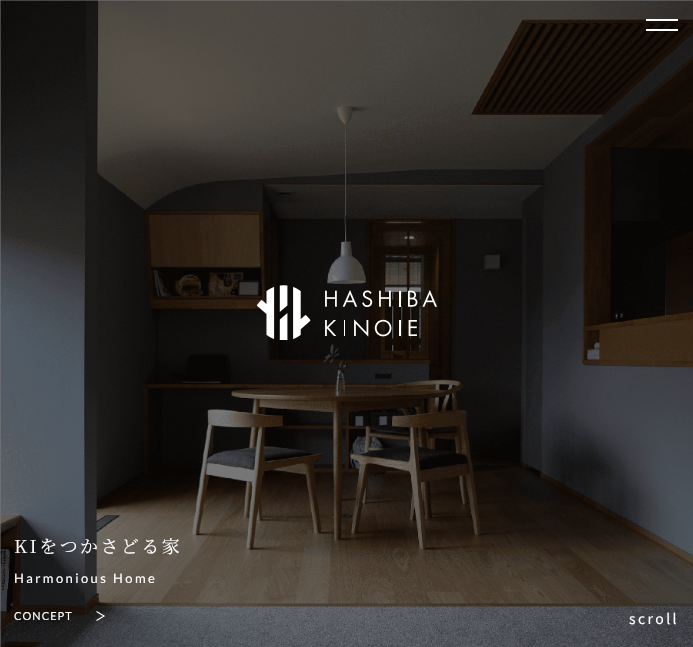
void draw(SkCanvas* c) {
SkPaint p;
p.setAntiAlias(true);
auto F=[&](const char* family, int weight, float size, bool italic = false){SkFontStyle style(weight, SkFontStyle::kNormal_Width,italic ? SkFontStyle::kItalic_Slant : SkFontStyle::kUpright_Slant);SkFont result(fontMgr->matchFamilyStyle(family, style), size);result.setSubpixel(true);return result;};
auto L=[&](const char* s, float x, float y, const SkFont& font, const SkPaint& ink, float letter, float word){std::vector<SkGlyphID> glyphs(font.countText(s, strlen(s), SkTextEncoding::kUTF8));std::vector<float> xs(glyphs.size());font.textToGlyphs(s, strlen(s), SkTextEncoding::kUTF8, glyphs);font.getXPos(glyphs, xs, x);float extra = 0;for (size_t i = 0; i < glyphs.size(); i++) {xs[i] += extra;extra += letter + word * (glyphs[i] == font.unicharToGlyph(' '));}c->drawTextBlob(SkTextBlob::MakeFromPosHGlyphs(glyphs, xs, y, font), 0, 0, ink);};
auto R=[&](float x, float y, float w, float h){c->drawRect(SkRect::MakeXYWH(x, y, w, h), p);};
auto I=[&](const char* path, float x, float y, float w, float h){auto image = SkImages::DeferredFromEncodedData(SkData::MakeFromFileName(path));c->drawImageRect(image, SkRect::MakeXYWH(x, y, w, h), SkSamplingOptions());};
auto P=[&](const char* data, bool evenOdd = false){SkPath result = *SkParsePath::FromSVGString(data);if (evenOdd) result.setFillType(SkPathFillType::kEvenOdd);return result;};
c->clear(0xff808080);
I("1.png",0,0,693,647);
p.setColor(0xffffffff);
R(646,19,32,2);
R(646,29,32,2);
I("2.png",257,285,180,55);
auto f1 = F("Noto Serif JP",200,18);
L("KIをつかさどる家",14,553,f1,p,2.4,0);
auto f2 = F("Lato",400,13);
L("Harmonious Home",14,583,f2,p,2.4,0);
auto f3 = F("Lato",400,11);
L("CONCEPT",14,620,f3,p,1,0);
p.setStroke(true);
p.setStrokeWidth(1.2);
c->drawPath(P("M96.5 611.5l7.5 4.5l-7.5 4.5"),p);
auto f4 = F("Noto Sans JP",400,14);
p.setStroke(false);
L("scroll",629,624,f4,p,2.4,0);
}
